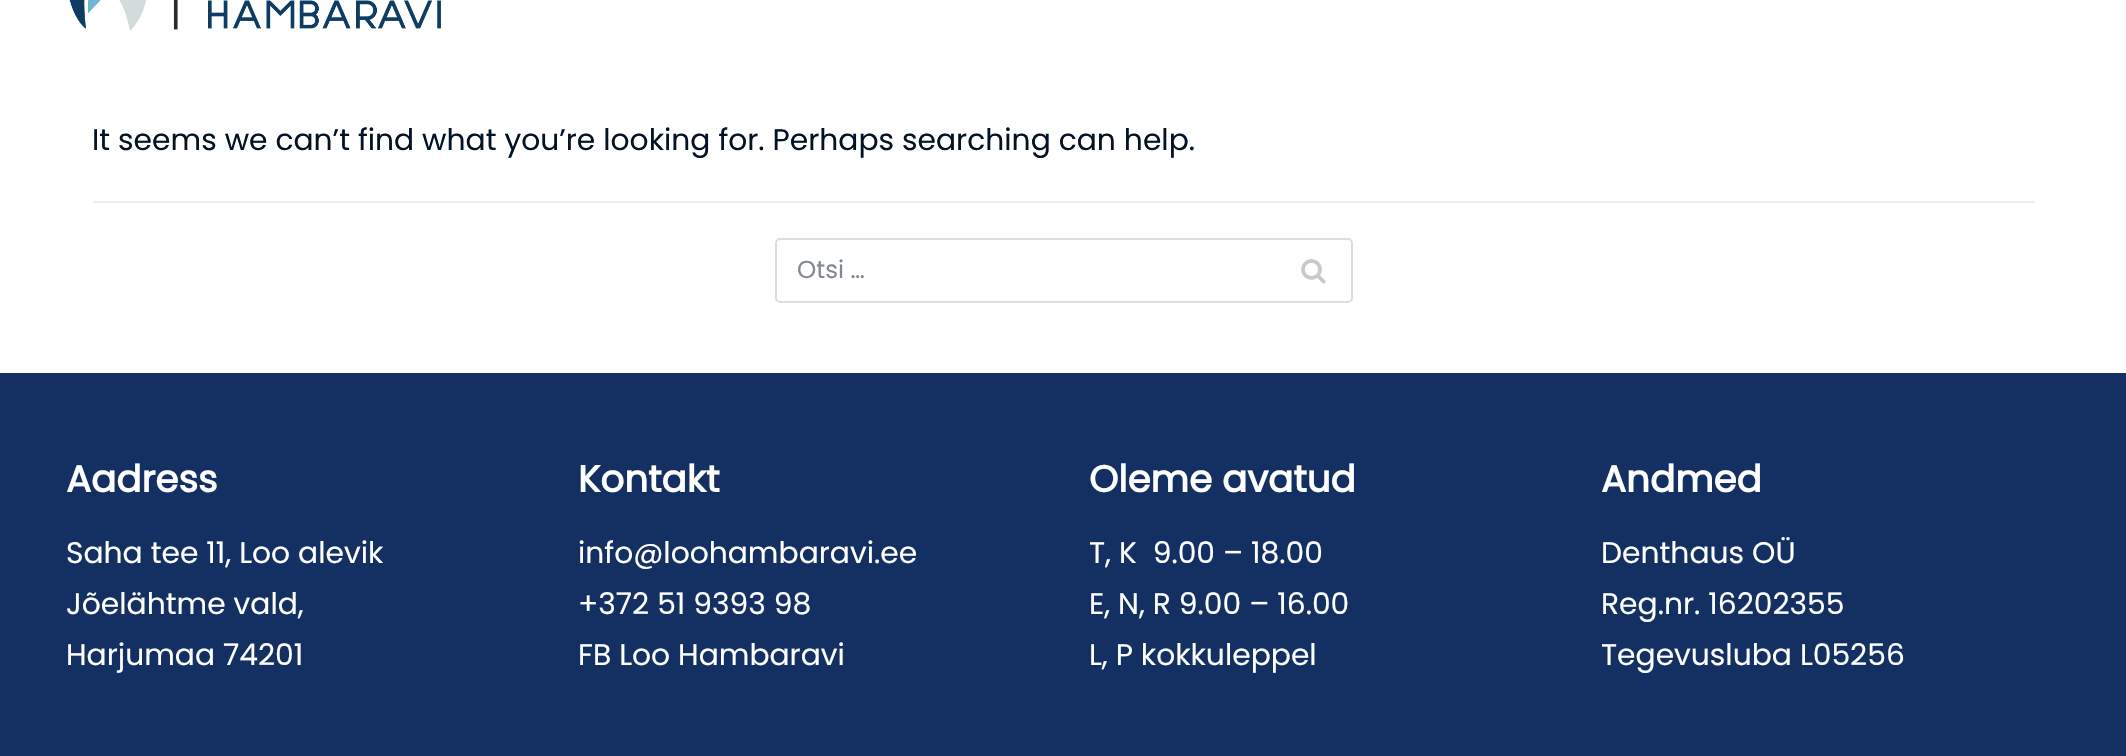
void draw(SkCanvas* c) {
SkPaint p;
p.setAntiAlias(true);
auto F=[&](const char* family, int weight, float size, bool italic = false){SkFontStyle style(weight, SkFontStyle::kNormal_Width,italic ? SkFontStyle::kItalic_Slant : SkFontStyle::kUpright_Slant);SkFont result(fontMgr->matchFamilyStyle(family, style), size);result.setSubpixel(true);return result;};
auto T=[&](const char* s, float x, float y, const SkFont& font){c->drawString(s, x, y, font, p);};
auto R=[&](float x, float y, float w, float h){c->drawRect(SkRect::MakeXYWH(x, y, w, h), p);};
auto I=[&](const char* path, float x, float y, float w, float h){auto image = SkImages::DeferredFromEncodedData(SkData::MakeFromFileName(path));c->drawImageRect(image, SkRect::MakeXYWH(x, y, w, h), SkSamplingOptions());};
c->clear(0xffffffff);
I("1.png",69,0,372,31);
auto f1 = F("Poppins",400,29.75);
p.setColor(0xff031224);
T("It seems we can’t find what you’re looking for. Perhaps searching can help.",92,150,f1);
p.setColor(0xffededed);
R(93,201,1942,2);
p.setStroke(true);
p.setStrokeWidth(2);
p.setColor(0xffdddddd);
c->drawRoundRect(SkRect::MakeXYWH(776,239,576,63),4,4,p);
auto f2 = F("Poppins",400,24.5);
p.setStroke(false);
p.setColor(0xff818992);
T("Otsi …",797,278,f2);
I("2.png",1301,259,25,25);
p.setColor(0xff143062);
R(0,373,2126,383);
auto f3 = F("Poppins",700,37.25);
p.setColor(0xffffffff);
T("Aadress",66,492,f3);
T("Saha tee 11, Loo alevik",66,563,f1);
T("Jõelähtme vald,",66,614,f1);
T("Harjumaa 74201",66,665,f1);
T("Kontakt",578,492,f3);
T("info@loohambaravi.ee",578,563,f1);
T("+372 51 9393 98",578,614,f1);
T("FB Loo Hambaravi",578,665,f1);
T("Oleme avatud",1089,492,f3);
T("T, K  9.00 – 18.00",1089,563,f1);
T("E, N, R 9.00 – 16.00",1089,614,f1);
T("L, P kokkuleppel",1089,665,f1);
T("Andmed",1601,492,f3);
T("Denthaus OÜ",1601,563,f1);
T("Reg.nr. 16202355",1601,614,f1);
T("Tegevusluba L05256",1601,665,f1);
}
